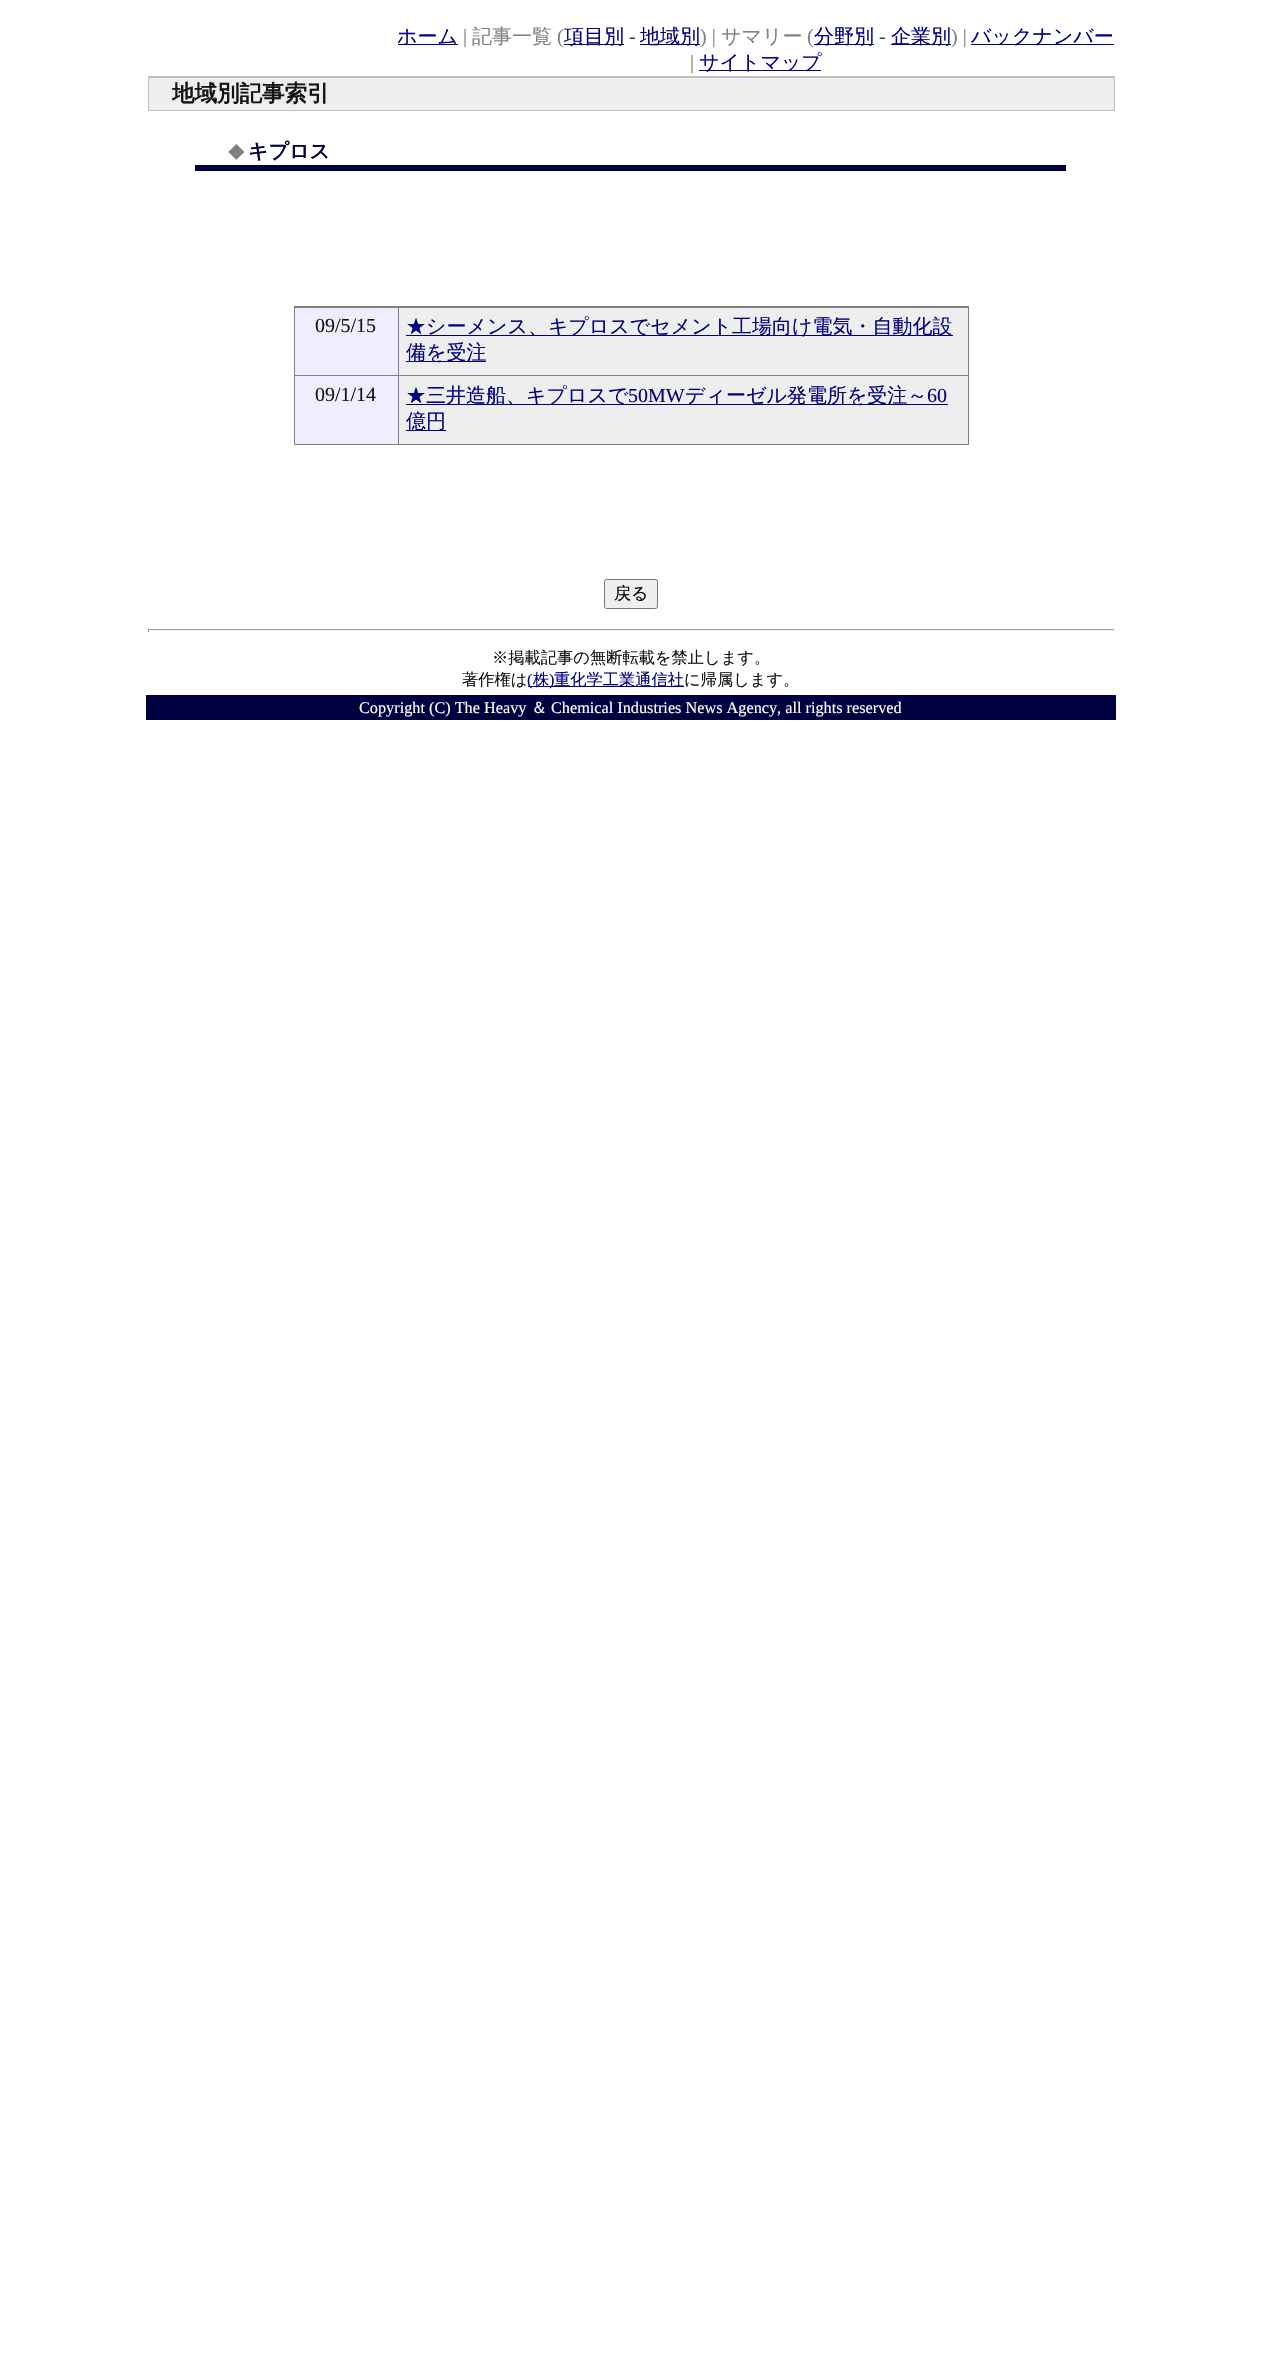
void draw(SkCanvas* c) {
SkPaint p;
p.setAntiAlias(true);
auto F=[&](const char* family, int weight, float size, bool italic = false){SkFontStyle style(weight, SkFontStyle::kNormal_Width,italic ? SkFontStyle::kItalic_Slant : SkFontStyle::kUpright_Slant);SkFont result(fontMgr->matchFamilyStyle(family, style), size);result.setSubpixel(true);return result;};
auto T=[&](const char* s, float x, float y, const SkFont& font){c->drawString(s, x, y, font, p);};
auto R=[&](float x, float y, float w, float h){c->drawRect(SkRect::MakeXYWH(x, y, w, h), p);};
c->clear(0xffffffff);
p.setColor(0xff000080);
R(398,44,60,1);
auto f1 = F("WenQuanYi Zen Hei",500,20);
T("ホーム",397,43,f1);
auto f2 = F("Liberation Serif",400,20);
p.setColor(0xff808080);
T("|",463,43,f2);
T("記事一覧",472,43,f1);
T("(",557,43,f2);
p.setColor(0xff000080);
R(564,44,60,1);
T("項目別",564,43,f1);
p.setColor(0xff444444);
T("-",629,43,f2);
p.setColor(0xff000080);
R(640,44,60,1);
T("地域別",640,43,f1);
p.setColor(0xff808080);
T(") |",700,43,f2);
T("サマリー",721,43,f1);
T("(",807,43,f2);
p.setColor(0xff000080);
R(814,44,60,1);
T("分野別",814,43,f1);
p.setColor(0xff444444);
T("-",879,43,f2);
p.setColor(0xff000080);
R(891,44,60,1);
T("企業別",891,43,f1);
p.setColor(0xff808080);
T(") |",951,43,f2);
p.setColor(0xff000080);
R(971,44,143,1);
T("バックナンバー",971,43,f1);
p.setColor(0xff808080);
T("|",690,69,f2);
p.setColor(0xff000080);
R(699,70,122,1);
T("サイトマップ",699,69,f1);
p.setColor(0xffc0c0c0);
R(148,76,967,35);
p.setColor(0xffeeeeee);
R(149,78,965,32);
auto f3 = F("WenQuanYi Zen Hei",700,22.5);
p.setColor(0xff141414);
T("地域別記事索引",172,101,f3);
auto f4 = F("WenQuanYi Zen Hei",700,16.25);
p.setColor(0xff808080);
T("◆",228,158,f4);
auto f5 = F("WenQuanYi Zen Hei",700,20);
p.setColor(0xff000040);
T("キプロス",248,158,f5);
R(195,165,871,6);
p.setColor(0xff808080);
R(294,306,675,139);
p.setColor(0xffeeeeff);
R(295,308,103,67);
p.setColor(0xff141414);
T("09/5/15",315,332,f2);
p.setColor(0xffeeeeee);
R(399,308,569,67);
p.setColor(0xff000080);
R(406,335,547,1);
T("★シーメンス、キプロスでセメント工場向け電気・自動化設",406,333,f1);
R(406,361,80,1);
T("備を受注",406,359,f1);
p.setColor(0xffeeeeff);
R(295,376,103,68);
p.setColor(0xff141414);
T("09/1/14",315,401,f2);
p.setColor(0xffeeeeee);
R(399,376,569,68);
p.setColor(0xff000080);
R(406,404,542,1);
T("★三井造船、キプロスで",406,402,f1);
T("50MW",628,402,f2);
T("ディーゼル発電所を受注～",685,402,f1);
T("60",927,402,f2);
R(406,430,40,1);
T("億円",406,428,f1);
p.setColor(0xffefefef);
c->drawRoundRect(SkRect::MakeXYWH(604.5,579.5,53,29),2,2,p);
p.setStroke(true);
p.setStrokeWidth(1);
p.setColor(0xff767676);
c->drawRoundRect(SkRect::MakeXYWH(604.5,579.5,53,29),2,2,p);
auto f6 = F("WenQuanYi Zen Hei",500,17);
p.setStroke(false);
p.setColor(0xff000000);
T("戻る",614,599,f6);
p.setColor(0xff9f9f9f);
R(148,629,967,1);
p.setColor(0xffeeeeee);
R(1114,629,1,3);
R(148,630,967,1);
p.setColor(0xff9f9f9f);
R(148,629,1,3);
auto f7 = F("WenQuanYi Zen Hei",500,16.25);
p.setColor(0xff141414);
T("※掲載記事の無断転載を禁止します。",492,663,f7);
T("著作権は",462,685,f7);
p.setColor(0xff000080);
R(528,686,156,1);
auto f8 = F("Liberation Serif",400,16.25);
T("(",527,685,f8);
T("株",533,685,f7);
T(")",549,685,f8);
T("重化学工業通信社",554,685,f7);
p.setColor(0xff141414);
T("に帰属します。",684,685,f7);
p.setColor(0xff000040);
R(146,695,970,25);
p.setColor(0xffffffff);
T("Copyright (C) The Heavy",359,713,f8);
T("＆",531,713,f7);
T("Chemical Industries News Agency, all rights reserved",551,713,f8);
}
